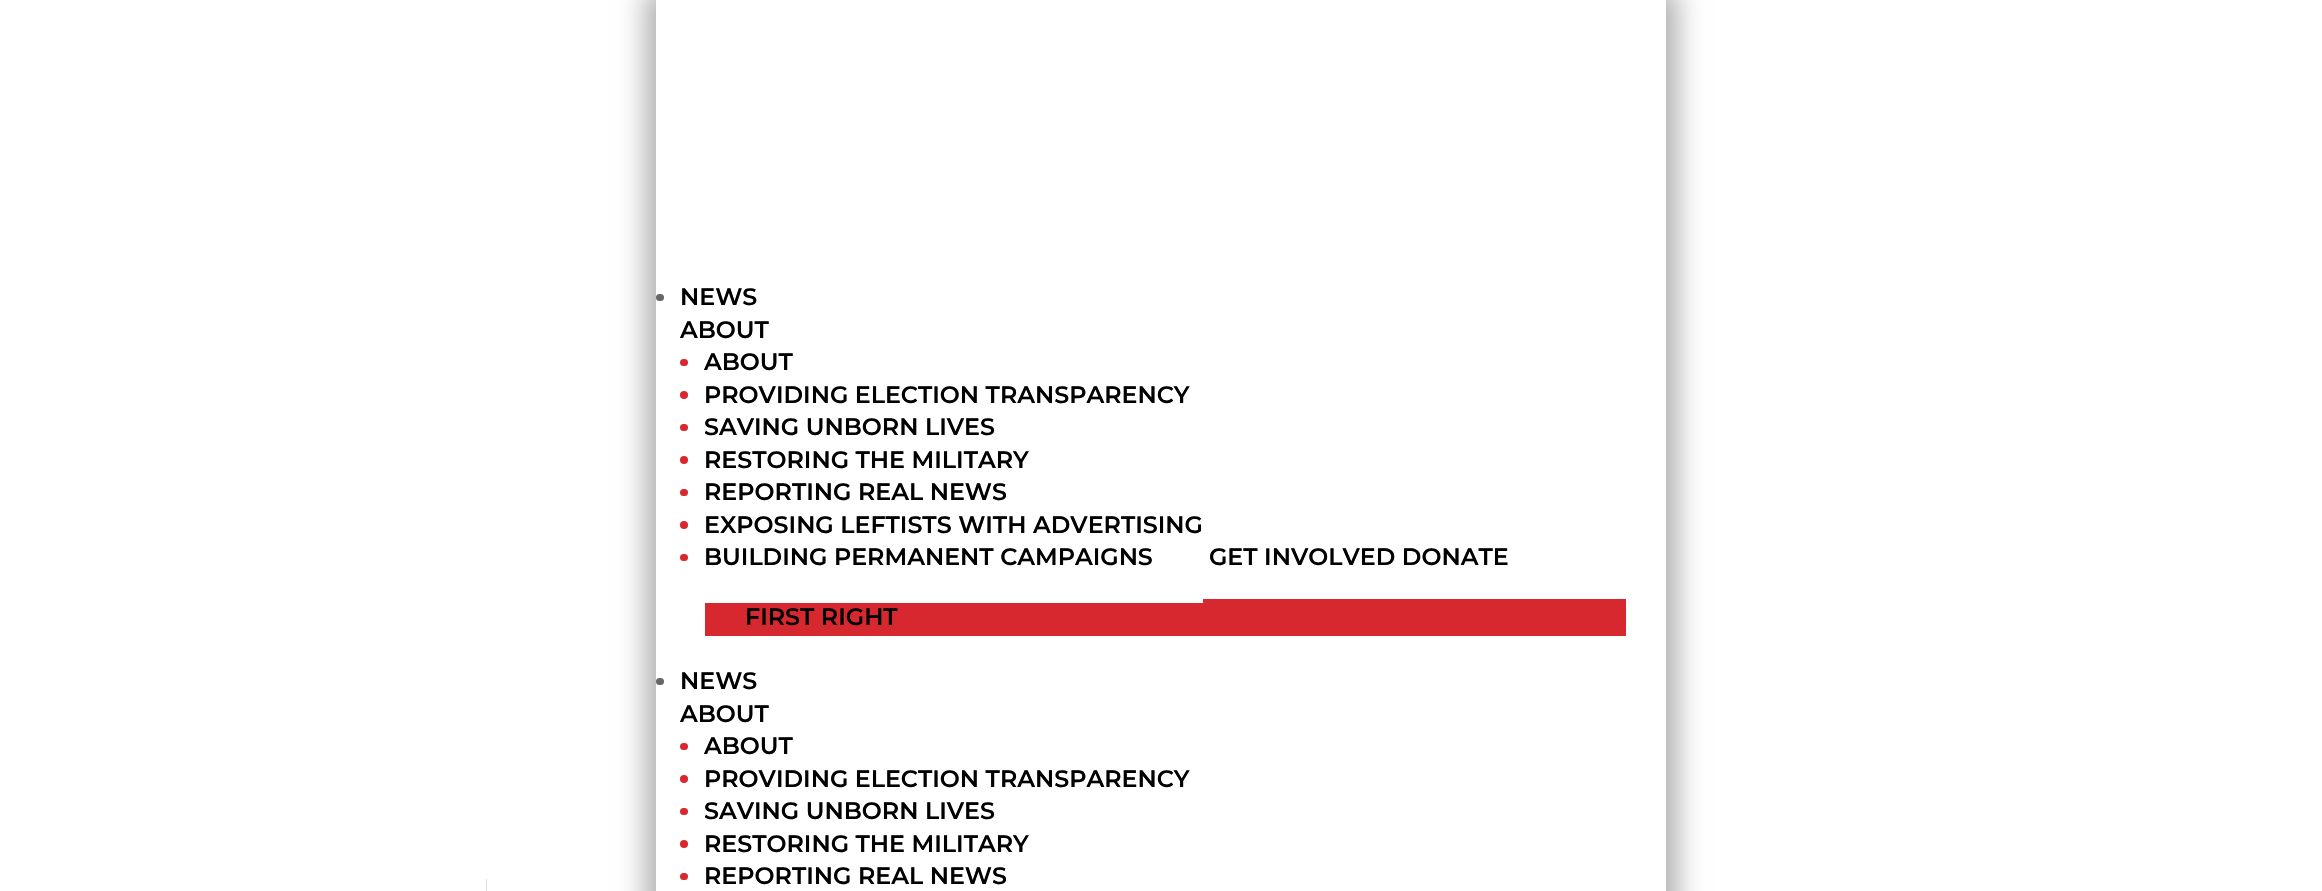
void draw(SkCanvas* c) {
SkPaint p;
p.setAntiAlias(true);
auto F=[&](const char* family, int weight, float size, bool italic = false){SkFontStyle style(weight, SkFontStyle::kNormal_Width,italic ? SkFontStyle::kItalic_Slant : SkFontStyle::kUpright_Slant);SkFont result(fontMgr->matchFamilyStyle(family, style), size);result.setSubpixel(true);return result;};
auto T=[&](const char* s, float x, float y, const SkFont& font){c->drawString(s, x, y, font, p);};
auto R=[&](float x, float y, float w, float h){c->drawRect(SkRect::MakeXYWH(x, y, w, h), p);};
auto Q=[&](float x, float y, float w, float h, float radius){c->drawRoundRect(SkRect::MakeXYWH(x, y, w, h), radius, radius, p);};
auto P=[&](const char* data, bool evenOdd = false){SkPath result = *SkParsePath::FromSVGString(data);if (evenOdd) result.setFillType(SkPathFillType::kEvenOdd);return result;};
c->clear(0xffffffff);
p.setColor(0xffe2e2e2);
R(486,879,1,12);
c->save();
c->clipPath(P("M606 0h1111v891h-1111zm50 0h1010v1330h-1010z",true),true);
p.setColor(0x4d000000);
p.setMaskFilter(SkMaskFilter::MakeBlur(kNormal_SkBlurStyle, 12.5));
c->drawRect(SkRect::MakeXYWH(645,-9,1033,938),p);
p.setMaskFilter(nullptr);
c->restore();
p.setColor(0xffffffff);
R(656,263,1,628);
p.setColor(0xff666666);
Q(656,294,8,7,3.5);
auto f1 = F("Montserrat",100,23.75);
p.setColor(0xff000000);
T("NEWS",680,305,f1);
T("ABOUT",680,338,f1);
p.setColor(0xffd7282f);
R(705,599,921,37);
p.setColor(0xffffffff);
R(705,599,498,4);
p.setColor(0xffd7282f);
Q(680,359,8,7,3.5);
p.setColor(0xff000000);
T("ABOUT",704,370,f1);
p.setColor(0xffd7282f);
c->drawCircle(684,395,4,p);
p.setColor(0xff000000);
T("PROVIDING ELECTION TRANSPARENCY",704,403,f1);
p.setColor(0xffd7282f);
Q(680,424,8,7,3.5);
p.setColor(0xff000000);
T("SAVING UNBORN LIVES",704,435,f1);
p.setColor(0xffd7282f);
c->drawCircle(684,460,4,p);
p.setColor(0xff000000);
T("RESTORING THE MILITARY",704,468,f1);
p.setColor(0xffd7282f);
Q(680,489,8,7,3.5);
p.setColor(0xff000000);
T("REPORTING REAL NEWS",704,500,f1);
p.setColor(0xffd7282f);
c->drawCircle(684,525,4,p);
p.setColor(0xff000000);
T("EXPOSING LEFTISTS WITH ADVERTISING",704,533,f1);
p.setColor(0xffd7282f);
Q(680,554,8,7,3.5);
p.setColor(0xff000000);
T("BUILDING PERMANENT CAMPAIGNS",704,565,f1);
T("GET INVOLVED DONATE",1209,565,f1);
T("FIRST RIGHT",745,625,f1);
p.setColor(0xff666666);
Q(656,678,8,7,3.5);
p.setColor(0xff000000);
T("NEWS",680,689,f1);
T("ABOUT",680,722,f1);
p.setColor(0xffd7282f);
Q(680,743,8,7,3.5);
p.setColor(0xff000000);
T("ABOUT",704,754,f1);
p.setColor(0xffd7282f);
c->drawCircle(684,779,4,p);
p.setColor(0xff000000);
T("PROVIDING ELECTION TRANSPARENCY",704,787,f1);
p.setColor(0xffd7282f);
Q(680,808,8,7,3.5);
p.setColor(0xff000000);
T("SAVING UNBORN LIVES",704,819,f1);
p.setColor(0xffd7282f);
c->drawCircle(684,844,4,p);
p.setColor(0xff000000);
T("RESTORING THE MILITARY",704,852,f1);
p.setColor(0xffd7282f);
Q(680,873,8,7,3.5);
p.setColor(0xff000000);
T("REPORTING REAL NEWS",704,884,f1);
}
